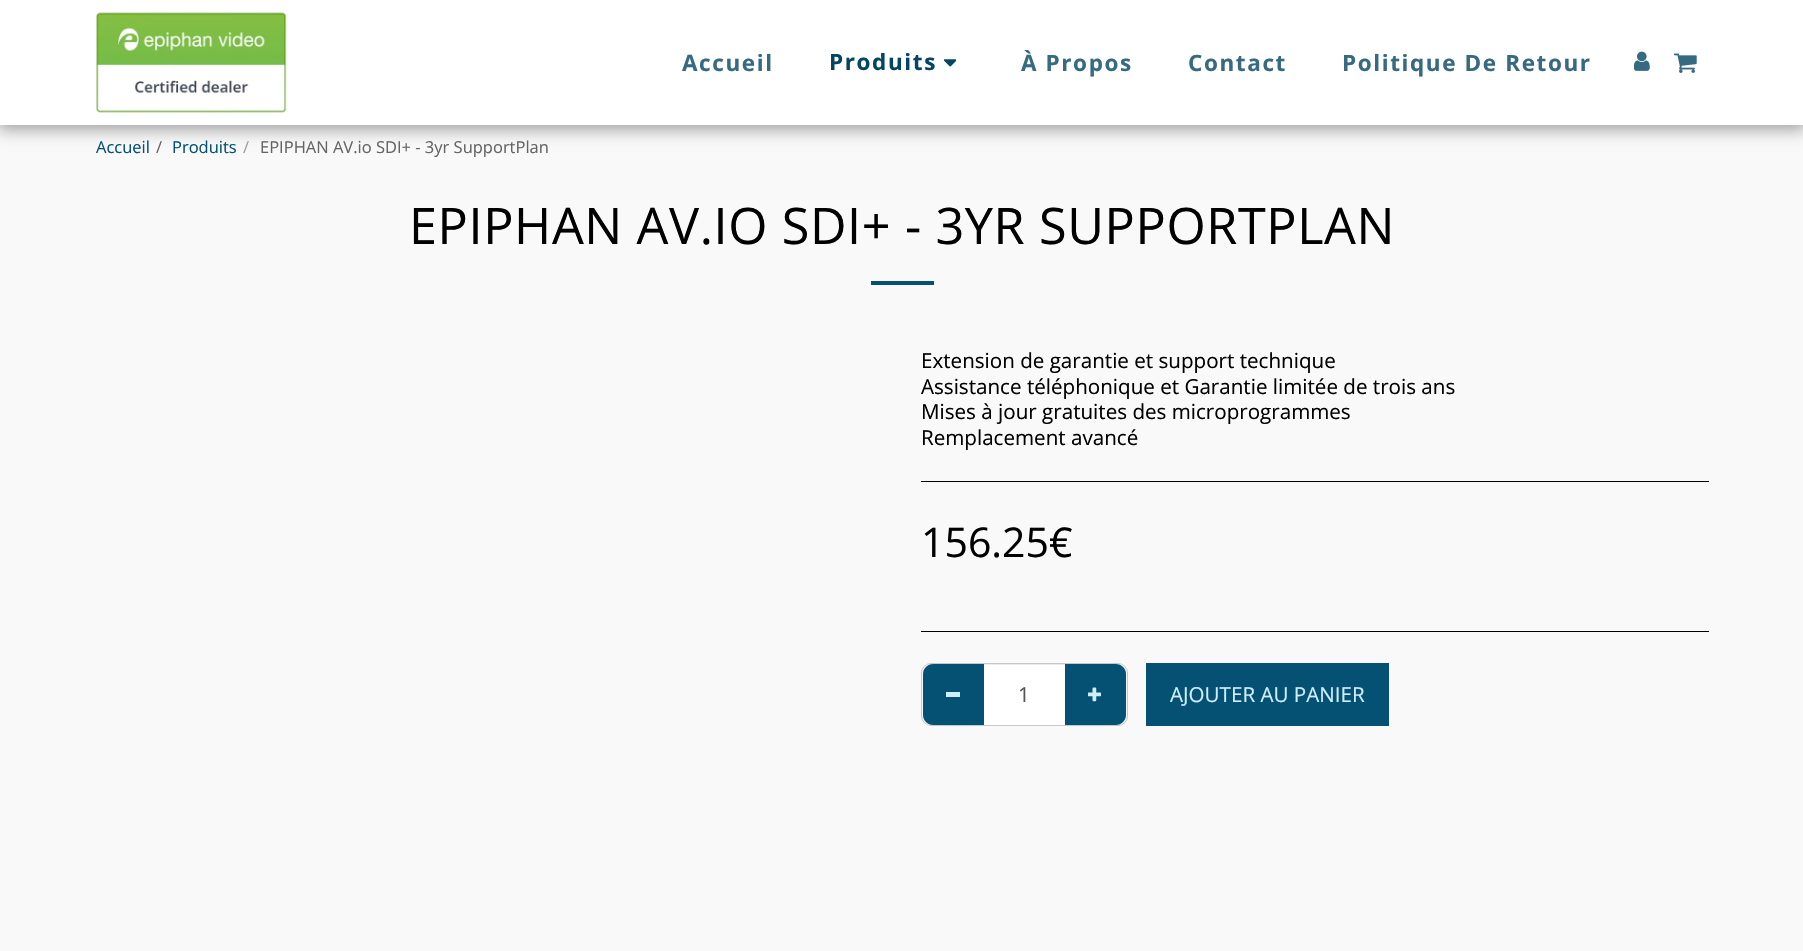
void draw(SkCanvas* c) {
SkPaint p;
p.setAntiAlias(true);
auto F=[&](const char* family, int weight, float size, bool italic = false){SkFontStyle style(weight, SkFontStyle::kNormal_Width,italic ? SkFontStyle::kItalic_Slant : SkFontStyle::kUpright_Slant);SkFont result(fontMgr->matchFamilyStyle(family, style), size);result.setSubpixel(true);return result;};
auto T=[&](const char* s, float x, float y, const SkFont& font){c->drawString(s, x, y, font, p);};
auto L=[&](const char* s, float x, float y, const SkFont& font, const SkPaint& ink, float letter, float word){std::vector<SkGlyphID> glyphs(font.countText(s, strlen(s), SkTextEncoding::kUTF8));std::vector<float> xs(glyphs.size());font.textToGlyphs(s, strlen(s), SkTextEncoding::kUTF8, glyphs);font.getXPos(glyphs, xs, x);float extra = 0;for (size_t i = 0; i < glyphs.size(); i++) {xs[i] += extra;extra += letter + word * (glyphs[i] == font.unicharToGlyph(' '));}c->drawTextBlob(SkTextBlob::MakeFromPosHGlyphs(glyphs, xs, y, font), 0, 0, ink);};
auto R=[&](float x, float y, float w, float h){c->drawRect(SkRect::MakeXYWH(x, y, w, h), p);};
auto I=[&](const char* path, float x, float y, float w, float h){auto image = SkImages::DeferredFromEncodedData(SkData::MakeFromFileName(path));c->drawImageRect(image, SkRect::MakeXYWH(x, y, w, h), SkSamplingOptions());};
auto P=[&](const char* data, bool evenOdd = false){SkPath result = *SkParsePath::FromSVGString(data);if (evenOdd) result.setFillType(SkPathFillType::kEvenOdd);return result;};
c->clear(0xfff9f9f9);
p.setColor(0x59000000);
p.setMaskFilter(SkMaskFilter::MakeBlur(kNormal_SkBlurStyle, 7.5));
c->drawRect(SkRect::MakeXYWH(-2,0,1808,130),p);
p.setMaskFilter(nullptr);
p.setColor(0xffffffff);
R(0,0,1803,125);
I("1.png",96,12,191,101);
auto f1 = F("Open Sans",700,22.5);
p.setColor(0xff356a82);
L("Accueil",682,71,f1,p,1.6,0);
p.setColor(0xff034563);
L("Produits",829,70,f1,p,1.6,0);
I("2.png",944,59,12,8);
p.setColor(0xff356a82);
L("À Propos",1021,71,f1,p,1.6,0);
L("Contact",1188,71,f1,p,1.6,0);
L("Politique De Retour",1342,71,f1,p,1.6,0);
I("3.png",1634,51,16,20);
I("4.png",1674,53,23,20);
auto f2 = F("Open Sans",400,16.5);
p.setColor(0xff045174);
T("Accueil",96,153,f2);
p.setColor(0xff646464);
T("/",156,153,f2);
p.setColor(0xff045174);
T("Produits",172,153,f2);
p.setColor(0xff9f9f9f);
T("/",243,153,f2);
p.setColor(0xff646464);
T("EPIPHAN AV.io SDI+ - 3yr SupportPlan",260,153,f2);
auto f3 = F("Open Sans",400,50.4);
p.setColor(0xff000000);
L("EPIPHAN AV.IO SDI+ - 3YR SUPPORTPLAN",409,244,f3,p,.6,0);
p.setColor(0xff045174);
R(871,281,63,4);
auto f4 = F("Open Sans",400,20.6);
p.setColor(0xff000000);
T("Extension de garantie et support technique",921,368,f4);
T("Assistance téléphonique et Garantie limitée de trois ans",921,394,f4);
T("Mises à jour gratuites des microprogrammes",921,419,f4);
T("Remplacement avancé",921,445,f4);
R(921,481,788,1);
auto f5 = F("Open Sans",400,41);
T("156.25€",921,557,f5);
R(921,631,788,1);
p.setStroke(true);
p.setStrokeWidth(1);
p.setColor(0xffc7c7c7);
c->drawRoundRect(SkRect::MakeXYWH(921.5,663.5,206,62),9.5,9.5,p);
p.setStroke(false);
p.setColor(0xff045174);
c->drawPath(P("M933 664h52v61h-52c-5.5 0-10-4.5-10-10v-41c0-5.5 4.5-10 10-10z"),p);
p.setColor(0xffceeefd);
R(946,692,14,5);
p.setColor(0xff045174);
c->drawPath(P("M1064 664h52c5.5 0 10 4.5 10 10v41c0 5.5-4.5 10-10 10h-52z"),p);
p.setColor(0xffffffff);
R(984,665,81,60);
p.setColor(0xffececec);
R(984,664,81,1);
p.setColor(0xff555555);
T("1",1018,702,f4);
I("5.png",1088,687,13,15);
p.setColor(0xff045174);
R(1146,663,243,63);
p.setColor(0xffceeefd);
T("AJOUTER AU PANIER",1170,702,f4);
}
